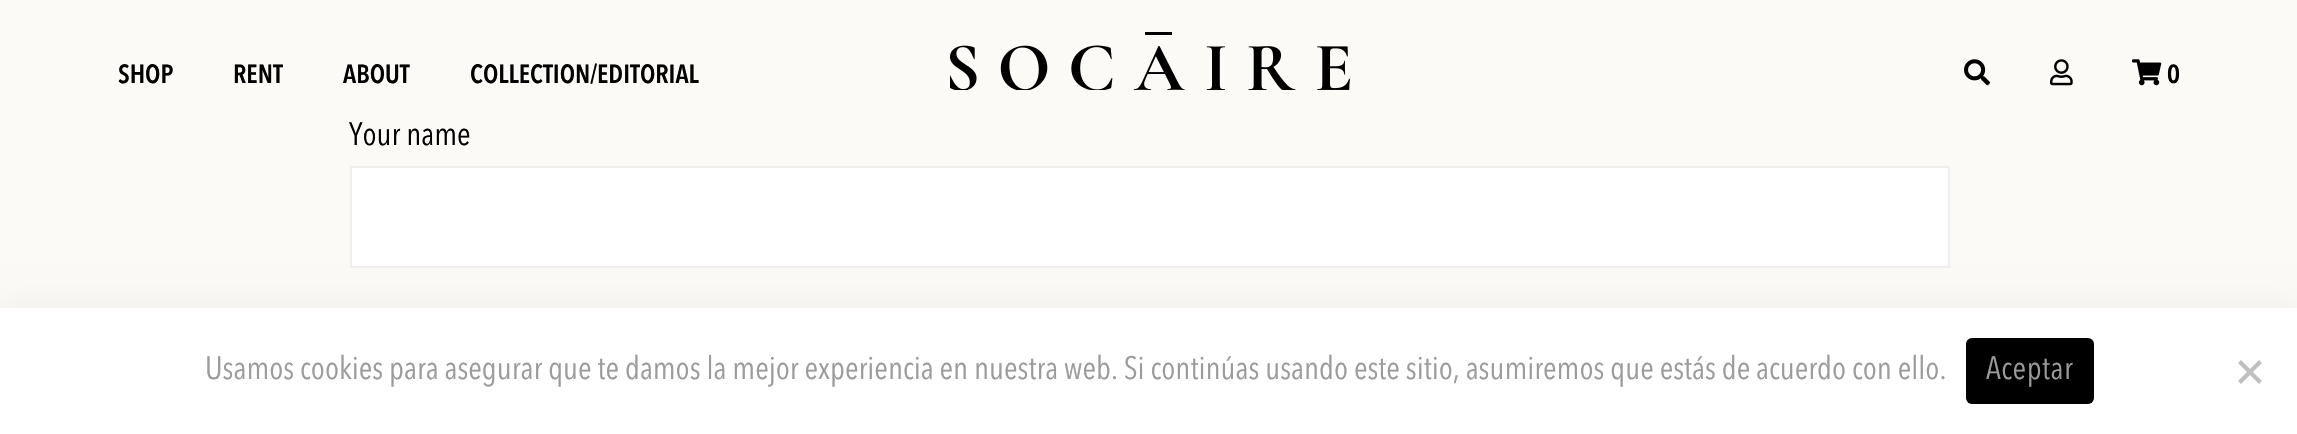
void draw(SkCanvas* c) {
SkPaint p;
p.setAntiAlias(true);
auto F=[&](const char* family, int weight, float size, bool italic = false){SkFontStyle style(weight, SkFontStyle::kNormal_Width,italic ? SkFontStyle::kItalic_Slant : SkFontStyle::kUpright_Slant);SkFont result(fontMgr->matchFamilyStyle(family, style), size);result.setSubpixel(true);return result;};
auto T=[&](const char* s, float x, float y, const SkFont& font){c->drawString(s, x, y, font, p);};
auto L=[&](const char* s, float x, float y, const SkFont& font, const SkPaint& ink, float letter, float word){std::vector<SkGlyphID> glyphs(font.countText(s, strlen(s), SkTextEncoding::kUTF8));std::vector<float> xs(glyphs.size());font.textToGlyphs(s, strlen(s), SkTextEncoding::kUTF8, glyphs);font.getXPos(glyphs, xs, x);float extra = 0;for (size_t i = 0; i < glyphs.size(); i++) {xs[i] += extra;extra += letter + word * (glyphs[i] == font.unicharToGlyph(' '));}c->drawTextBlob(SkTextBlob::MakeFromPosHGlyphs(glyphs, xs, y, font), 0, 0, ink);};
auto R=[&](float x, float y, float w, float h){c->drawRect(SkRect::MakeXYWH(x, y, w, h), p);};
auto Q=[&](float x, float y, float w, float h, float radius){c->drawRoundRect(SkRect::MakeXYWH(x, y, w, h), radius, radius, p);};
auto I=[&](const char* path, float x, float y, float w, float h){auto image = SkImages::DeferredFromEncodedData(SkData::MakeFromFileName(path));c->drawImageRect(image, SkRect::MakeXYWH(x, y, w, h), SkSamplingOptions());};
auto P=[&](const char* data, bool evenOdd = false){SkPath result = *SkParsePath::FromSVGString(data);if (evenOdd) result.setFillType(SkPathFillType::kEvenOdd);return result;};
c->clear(0xfffcfaf7);
auto f1 = F("Avenir Next",600,26);
p.setColor(0xff000000);
T("SHOP",118,83,f1);
T("RENT",233,83,f1);
T("ABOUT",343,83,f1);
T("COLLECTION/EDITORIAL",470,83,f1);
I("1.png",950,32,400,58);
I("2.png",1964,59,26,27);
I("3.png",2050,59,23,27);
I("4.png",2132,59,30,27);
T("0",2167,83,f1);
auto f2 = F("Avenir Next",400,32);
T("Your name",349,145,f2);
p.setColor(0xffffffff);
c->drawRect(SkRect::MakeXYWH(351,167,1598,100),p);
p.setStroke(true);
p.setStrokeWidth(2);
p.setColor(0xfff0eeec);
c->drawRect(SkRect::MakeXYWH(351,167,1598,100),p);
p.setStroke(false);
p.setColor(0x0f000000);
p.setMaskFilter(SkMaskFilter::MakeBlur(kNormal_SkBlurStyle, 15));
c->drawRect(SkRect::MakeXYWH(0,308,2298,126),p);
p.setMaskFilter(nullptr);
p.setColor(0xffffffff);
R(0,308,2297,126);
p.setColor(0xff9b9b9b);
T("Usamos cookies para asegurar que te damos la mejor experiencia en nuestra web. Si continúas usando este sitio, asumiremos que estás de acuerdo con ello.",205,379,f2);
p.setColor(0xff000000);
Q(1966,338,128,66,6);
p.setColor(0xff9b9b9b);
L("Aceptar",1986,379,f2,p,.5,0);
p.setColor(0xffc0c0c0);
c->drawPath(P("M2259 360l3 3l-21 21l-3-3z"),p);
c->drawPath(P("M2238 363l3-3l21 21l-3 3z"),p);
}
